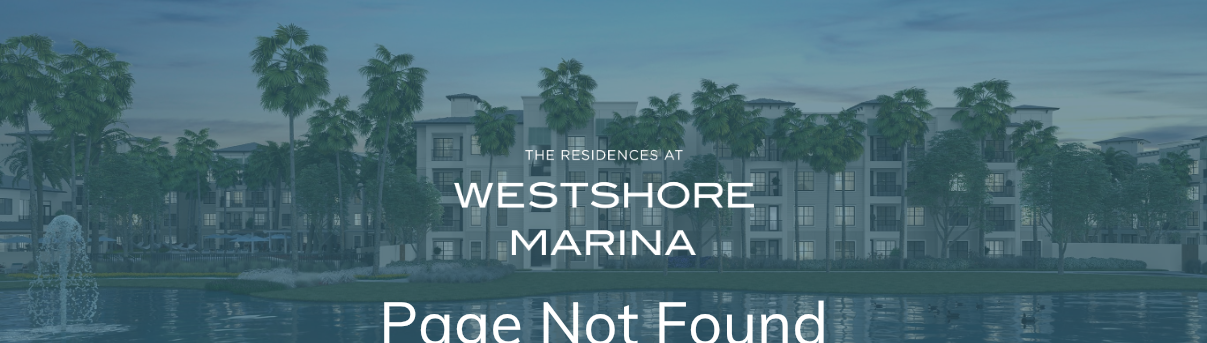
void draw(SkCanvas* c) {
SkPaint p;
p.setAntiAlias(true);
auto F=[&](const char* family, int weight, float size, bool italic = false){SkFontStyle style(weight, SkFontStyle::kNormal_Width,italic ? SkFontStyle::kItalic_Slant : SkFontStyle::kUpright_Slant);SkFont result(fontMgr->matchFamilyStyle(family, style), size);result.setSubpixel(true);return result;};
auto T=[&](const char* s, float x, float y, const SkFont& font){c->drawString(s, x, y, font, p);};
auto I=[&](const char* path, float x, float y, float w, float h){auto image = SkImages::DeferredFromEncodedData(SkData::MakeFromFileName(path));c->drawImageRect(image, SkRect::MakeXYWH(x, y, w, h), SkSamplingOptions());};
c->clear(0xffffffff);
I("1.png",0,0,1207,343);
I("2.png",454,150,300,105);
auto f1 = F("Muli",400,60);
p.setColor(0xffffffff);
T("Page Not Found",379,345,f1);
}
